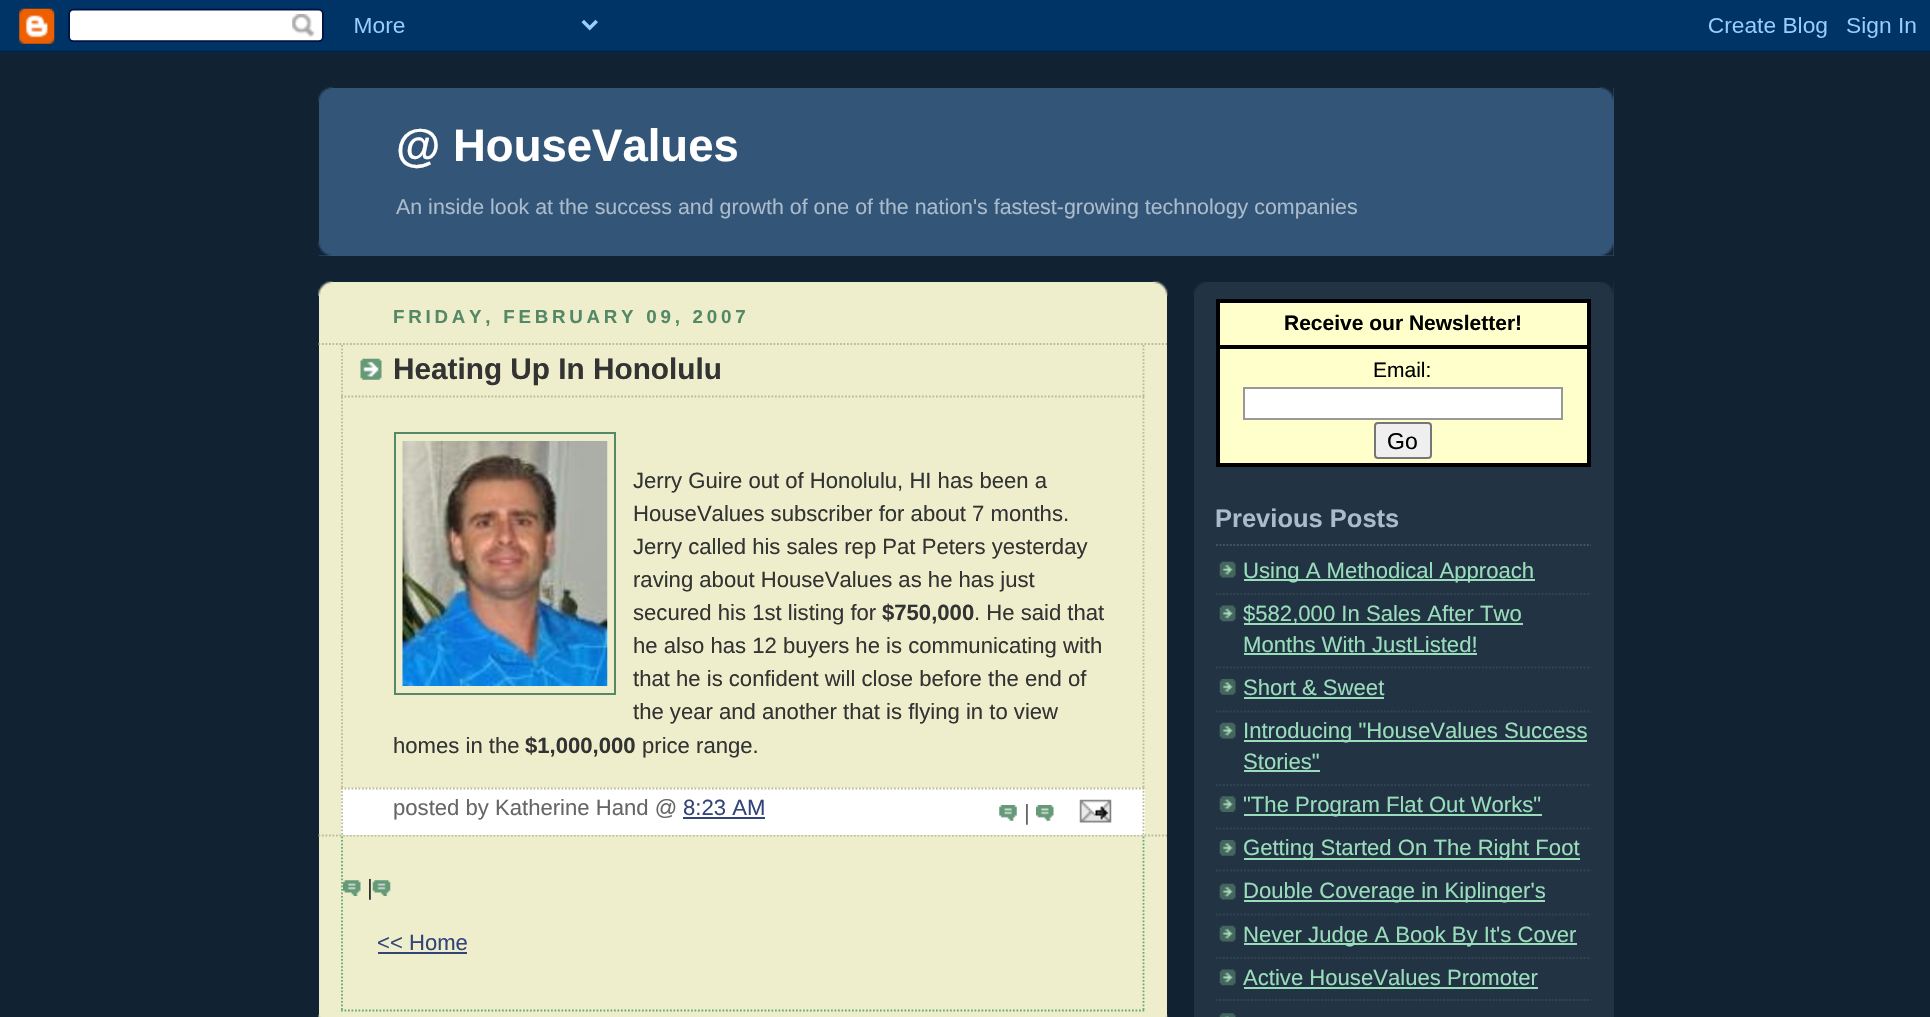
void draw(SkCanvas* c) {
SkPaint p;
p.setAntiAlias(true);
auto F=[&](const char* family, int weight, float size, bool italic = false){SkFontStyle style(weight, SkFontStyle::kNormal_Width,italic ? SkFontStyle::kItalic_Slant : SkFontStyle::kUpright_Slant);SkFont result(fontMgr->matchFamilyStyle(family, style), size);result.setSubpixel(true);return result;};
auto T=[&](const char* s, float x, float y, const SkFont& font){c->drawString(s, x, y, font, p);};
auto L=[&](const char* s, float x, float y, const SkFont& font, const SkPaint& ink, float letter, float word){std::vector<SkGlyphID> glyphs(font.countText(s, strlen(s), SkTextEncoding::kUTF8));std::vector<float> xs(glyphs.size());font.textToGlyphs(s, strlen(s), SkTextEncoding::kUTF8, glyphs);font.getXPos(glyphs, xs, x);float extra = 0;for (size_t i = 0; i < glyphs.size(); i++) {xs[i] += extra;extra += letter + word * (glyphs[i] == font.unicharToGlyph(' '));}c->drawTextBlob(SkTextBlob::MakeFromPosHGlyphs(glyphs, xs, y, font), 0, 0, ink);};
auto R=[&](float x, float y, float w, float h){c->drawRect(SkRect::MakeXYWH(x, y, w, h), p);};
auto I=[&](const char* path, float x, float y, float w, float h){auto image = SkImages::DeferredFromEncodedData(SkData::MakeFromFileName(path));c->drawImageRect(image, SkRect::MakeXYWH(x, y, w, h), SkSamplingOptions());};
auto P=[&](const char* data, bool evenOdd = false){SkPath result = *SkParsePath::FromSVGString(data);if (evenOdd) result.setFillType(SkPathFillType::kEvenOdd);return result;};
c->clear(0xff112233);
I("1.png",0,0,1930,53);
p.setColor(0xff335577);
R(319,88,1295,168);
I("2.png",318,241,1296,15);
I("3.png",318,87,1296,15);
auto f1 = F("Liberation Sans",700,45.5);
p.setColor(0xffffffff);
T("@ HouseValues",396,161,f1);
auto f2 = F("Liberation Sans",400,21.4);
p.setColor(0xffaabbcc);
T("An inside look at the success and growth of one of the nation's fastest-growing technology companies",396,214,f2);
p.setColor(0xffeeeecc);
R(319,282,848,735);
I("4.png",318,1014,850,3);
I("5.png",318,281,850,16);
auto f3 = F("Liberation Sans",700,18.75);
p.setColor(0xff558866);
L("FRIDAY, FEBRUARY 09, 2007",393,323,f3,p,3.75,0);
p.setStroke(true);
p.setStrokeWidth(1.8);
p.setColor(0xffbbbb99);
p.setPathEffect(SkDashPathEffect::Make({{1.75f,1.75f}}, 0));
c->drawPath(P("M318.5 344h848.5"),p);
p.setPathEffect(nullptr);
p.setPathEffect(SkDashPathEffect::Make({{1.75f,1.75f}}, 0));
c->drawPath(P("M318.5 835.5h848.5"),p);
p.setPathEffect(nullptr);
I("6.png",360,358,22,22);
p.setPathEffect(SkDashPathEffect::Make({{1.75f,1.75f}}, 0));
c->drawPath(P("M1143.5 345v52"),p);
p.setPathEffect(nullptr);
p.setPathEffect(SkDashPathEffect::Make({{1.75f,1.75f}}, 0));
c->drawPath(P("M341 396.5h803.5"),p);
p.setPathEffect(nullptr);
p.setPathEffect(SkDashPathEffect::Make({{1.75f,1.75f}}, 0));
c->drawPath(P("M342 345v52"),p);
p.setPathEffect(nullptr);
auto f4 = F("Liberation Sans",700,29.75);
p.setStroke(false);
p.setColor(0xff333333);
T("Heating Up In Honolulu",393,379,f4);
p.setStroke(true);
p.setColor(0xffbbbb99);
p.setPathEffect(SkDashPathEffect::Make({{1.75f,1.75f}}, 0));
c->drawPath(P("M1143.5 397v390.5"),p);
p.setPathEffect(nullptr);
p.setPathEffect(SkDashPathEffect::Make({{1.75f,1.75f}}, 0));
c->drawPath(P("M342 397v390.5"),p);
p.setPathEffect(nullptr);
p.setStrokeWidth(2);
p.setColor(0xff558866);
c->drawRect(SkRect::MakeXYWH(395,433,220,261),p);
I("7.png",402,441,206,245);
auto f5 = F("Liberation Sans",400,22.1);
p.setStroke(false);
p.setColor(0xff333333);
T("Jerry Guire out of Honolulu, HI has been a",633,488,f5);
T("HouseValues subscriber for about 7 months.",633,521,f5);
T("Jerry called his sales rep Pat Peters yesterday",633,554,f5);
T("raving about HouseValues as he has just",633,587,f5);
T("secured his 1st listing for",633,620,f5);
auto f6 = F("Liberation Sans",700,22.1);
T("$750,000",882,620,f6);
T(". He said that",974,620,f5);
T("he also has 12 buyers he is communicating with",633,653,f5);
T("that he is confident will close before the end of",633,686,f5);
T("the year and another that is flying in to view",633,719,f5);
T("homes in the",393,753,f5);
T("$1,000,000",525,753,f6);
T("price range.",642,753,f5);
p.setColor(0xffffffff);
R(341,788,804,47);
p.setStroke(true);
p.setStrokeWidth(1.8);
p.setColor(0xffbbbb99);
p.setPathEffect(SkDashPathEffect::Make({{1.75f,1.75f}}, 0));
c->drawPath(P("M341 788.5h803.5"),p);
p.setPathEffect(nullptr);
p.setPathEffect(SkDashPathEffect::Make({{1.75f,1.75f}}, 0));
c->drawPath(P("M1143.5 787.5v47.5"),p);
p.setPathEffect(nullptr);
p.setPathEffect(SkDashPathEffect::Make({{1.75f,1.75f}}, 0));
c->drawPath(P("M342 787.5v47.5"),p);
p.setPathEffect(nullptr);
p.setStroke(false);
p.setColor(0xff666666);
T("posted by Katherine Hand @",393,815,f5);
p.setColor(0xff334477);
T("8:23 AM",683,815,f5);
R(683,817,82,2);
I("8.png",999,805,18,16);
p.setColor(0xff666666);
T("|",1024,820,f5);
I("9.png",1036,805,18,16);
I("10.png",1079,799,33,24);
p.setStroke(true);
p.setColor(0xff66aa77);
p.setPathEffect(SkDashPathEffect::Make({{1.75f,1.75f}}, 0));
c->drawPath(P("M1143.5 836.5v175"),p);
p.setPathEffect(nullptr);
p.setPathEffect(SkDashPathEffect::Make({{1.75f,1.75f}}, 0));
c->drawPath(P("M341 1010.5h803.5"),p);
p.setPathEffect(nullptr);
p.setPathEffect(SkDashPathEffect::Make({{1.75f,1.75f}}, 0));
c->drawPath(P("M342 836.5v175"),p);
p.setPathEffect(nullptr);
I("11.png",343,880,18,16);
p.setStroke(false);
p.setColor(0xff333333);
T("|",367,895,f5);
I("12.png",372,880,19,16);
p.setColor(0xff334477);
T("<< Home",377,950,f5);
R(378,952,89,2);
p.setColor(0xff223344);
R(1194,282,420,735);
I("13.png",1193,282,421,14);
p.setColor(0xffffffcc);
c->drawRect(SkRect::MakeXYWH(1218,301,371,164),p);
p.setStroke(true);
p.setStrokeWidth(4);
p.setColor(0xff000000);
c->drawRect(SkRect::MakeXYWH(1218,301,371,164),p);
auto f7 = F("Liberation Sans",700,21);
p.setStroke(false);
T("Receive our Newsletter!",1284,330,f7);
R(1220,345,367,4);
auto f8 = F("Liberation Sans",400,21);
T("Email:",1373,377,f8);
p.setColor(0xffffffff);
c->drawRect(SkRect::MakeXYWH(1244,388,318,31),p);
p.setStroke(true);
p.setStrokeWidth(2);
p.setColor(0xff999999);
c->drawRect(SkRect::MakeXYWH(1244,388,318,31),p);
p.setStroke(false);
p.setColor(0xffefefef);
c->drawRoundRect(SkRect::MakeXYWH(1375,423,56,35),3,3,p);
p.setStroke(true);
p.setColor(0xff767676);
c->drawRoundRect(SkRect::MakeXYWH(1375,423,56,35),3,3,p);
auto f9 = F("Liberation Sans",400,23);
p.setStroke(false);
p.setColor(0xff000000);
T("Go",1387,449,f9);
p.setStroke(true);
p.setStrokeWidth(1.8);
p.setColor(0xff445566);
p.setPathEffect(SkDashPathEffect::Make({{1.75f,1.75f}}, 0));
c->drawPath(P("M1216 545h375"),p);
p.setPathEffect(nullptr);
auto f10 = F("Liberation Sans",700,25.5);
p.setStroke(false);
p.setColor(0xffaabbcc);
T("Previous Posts",1215,527,f10);
I("14.png",1219,561,17,17);
p.setStroke(true);
p.setColor(0xff334455);
p.setPathEffect(SkDashPathEffect::Make({{1.75f,1.75f}}, 0));
c->drawPath(P("M1216 594h375"),p);
p.setPathEffect(nullptr);
p.setStroke(false);
p.setColor(0xff99ddbb);
R(1244,579,291,2);
T("Using A Methodical Approach",1243,578,f5);
I("15.png",1219,605,17,17);
p.setStroke(true);
p.setColor(0xff334455);
p.setPathEffect(SkDashPathEffect::Make({{1.75f,1.75f}}, 0));
c->drawPath(P("M1216 667.5h375"),p);
p.setPathEffect(nullptr);
p.setStroke(false);
p.setColor(0xff99ddbb);
R(1244,623,279,2);
T("$582,000 In Sales After Two",1243,621,f5);
T("Months With JustListed!",1243,652,f5);
R(1244,653,233,2);
I("16.png",1219,679,17,16);
p.setStroke(true);
p.setColor(0xff334455);
p.setPathEffect(SkDashPathEffect::Make({{1.75f,1.75f}}, 0));
c->drawPath(P("M1216 711.5h375"),p);
p.setPathEffect(nullptr);
p.setStroke(false);
p.setColor(0xff99ddbb);
T("Short & Sweet",1243,695,f5);
R(1244,697,140,2);
I("14.png",1219,722,17,17);
p.setStroke(true);
p.setColor(0xff334455);
p.setPathEffect(SkDashPathEffect::Make({{1.75f,1.75f}}, 0));
c->drawPath(P("M1216 785h375"),p);
p.setPathEffect(nullptr);
p.setStroke(false);
p.setColor(0xff99ddbb);
R(1244,740,343,2);
T("Introducing \"HouseValues Success",1243,738,f5);
T("Stories\"",1243,769,f5);
R(1244,770,76,2);
I("17.png",1219,796,17,16);
p.setStroke(true);
p.setColor(0xff334455);
p.setPathEffect(SkDashPathEffect::Make({{1.75f,1.75f}}, 0));
c->drawPath(P("M1216 828.5h375"),p);
p.setPathEffect(nullptr);
p.setStroke(false);
p.setColor(0xff99ddbb);
R(1244,814,298,2);
T("\"The Program Flat Out Works\"",1243,812,f5);
I("16.png",1219,840,17,16);
p.setStroke(true);
p.setColor(0xff334455);
p.setPathEffect(SkDashPathEffect::Make({{1.75f,1.75f}}, 0));
c->drawPath(P("M1216 870.5h375"),p);
p.setPathEffect(nullptr);
p.setStroke(false);
p.setColor(0xff99ddbb);
R(1244,858,336,2);
T("Getting Started On The Right Foot",1243,855,f5);
I("14.png",1219,883,17,17);
p.setStroke(true);
p.setColor(0xff334455);
p.setPathEffect(SkDashPathEffect::Make({{1.75f,1.75f}}, 0));
c->drawPath(P("M1216 914.5h375"),p);
p.setPathEffect(nullptr);
p.setStroke(false);
p.setColor(0xff99ddbb);
R(1244,900,301,2);
T("Double Coverage in Kiplinger's",1243,898,f5);
I("14.png",1219,925,17,17);
p.setStroke(true);
p.setColor(0xff334455);
p.setPathEffect(SkDashPathEffect::Make({{1.75f,1.75f}}, 0));
c->drawPath(P("M1216 958h375"),p);
p.setPathEffect(nullptr);
p.setStroke(false);
p.setColor(0xff99ddbb);
R(1244,943,333,2);
T("Never Judge A Book By It's Cover",1243,942,f5);
I("15.png",1219,969,17,17);
p.setStroke(true);
p.setColor(0xff334455);
p.setPathEffect(SkDashPathEffect::Make({{1.75f,1.75f}}, 0));
c->drawPath(P("M1216 1000h375"),p);
p.setPathEffect(nullptr);
p.setStroke(false);
p.setColor(0xff99ddbb);
T("Active HouseValues Promoter",1243,985,f5);
R(1244,987,294,2);
I("18.png",1219,1013,17,4);
}
